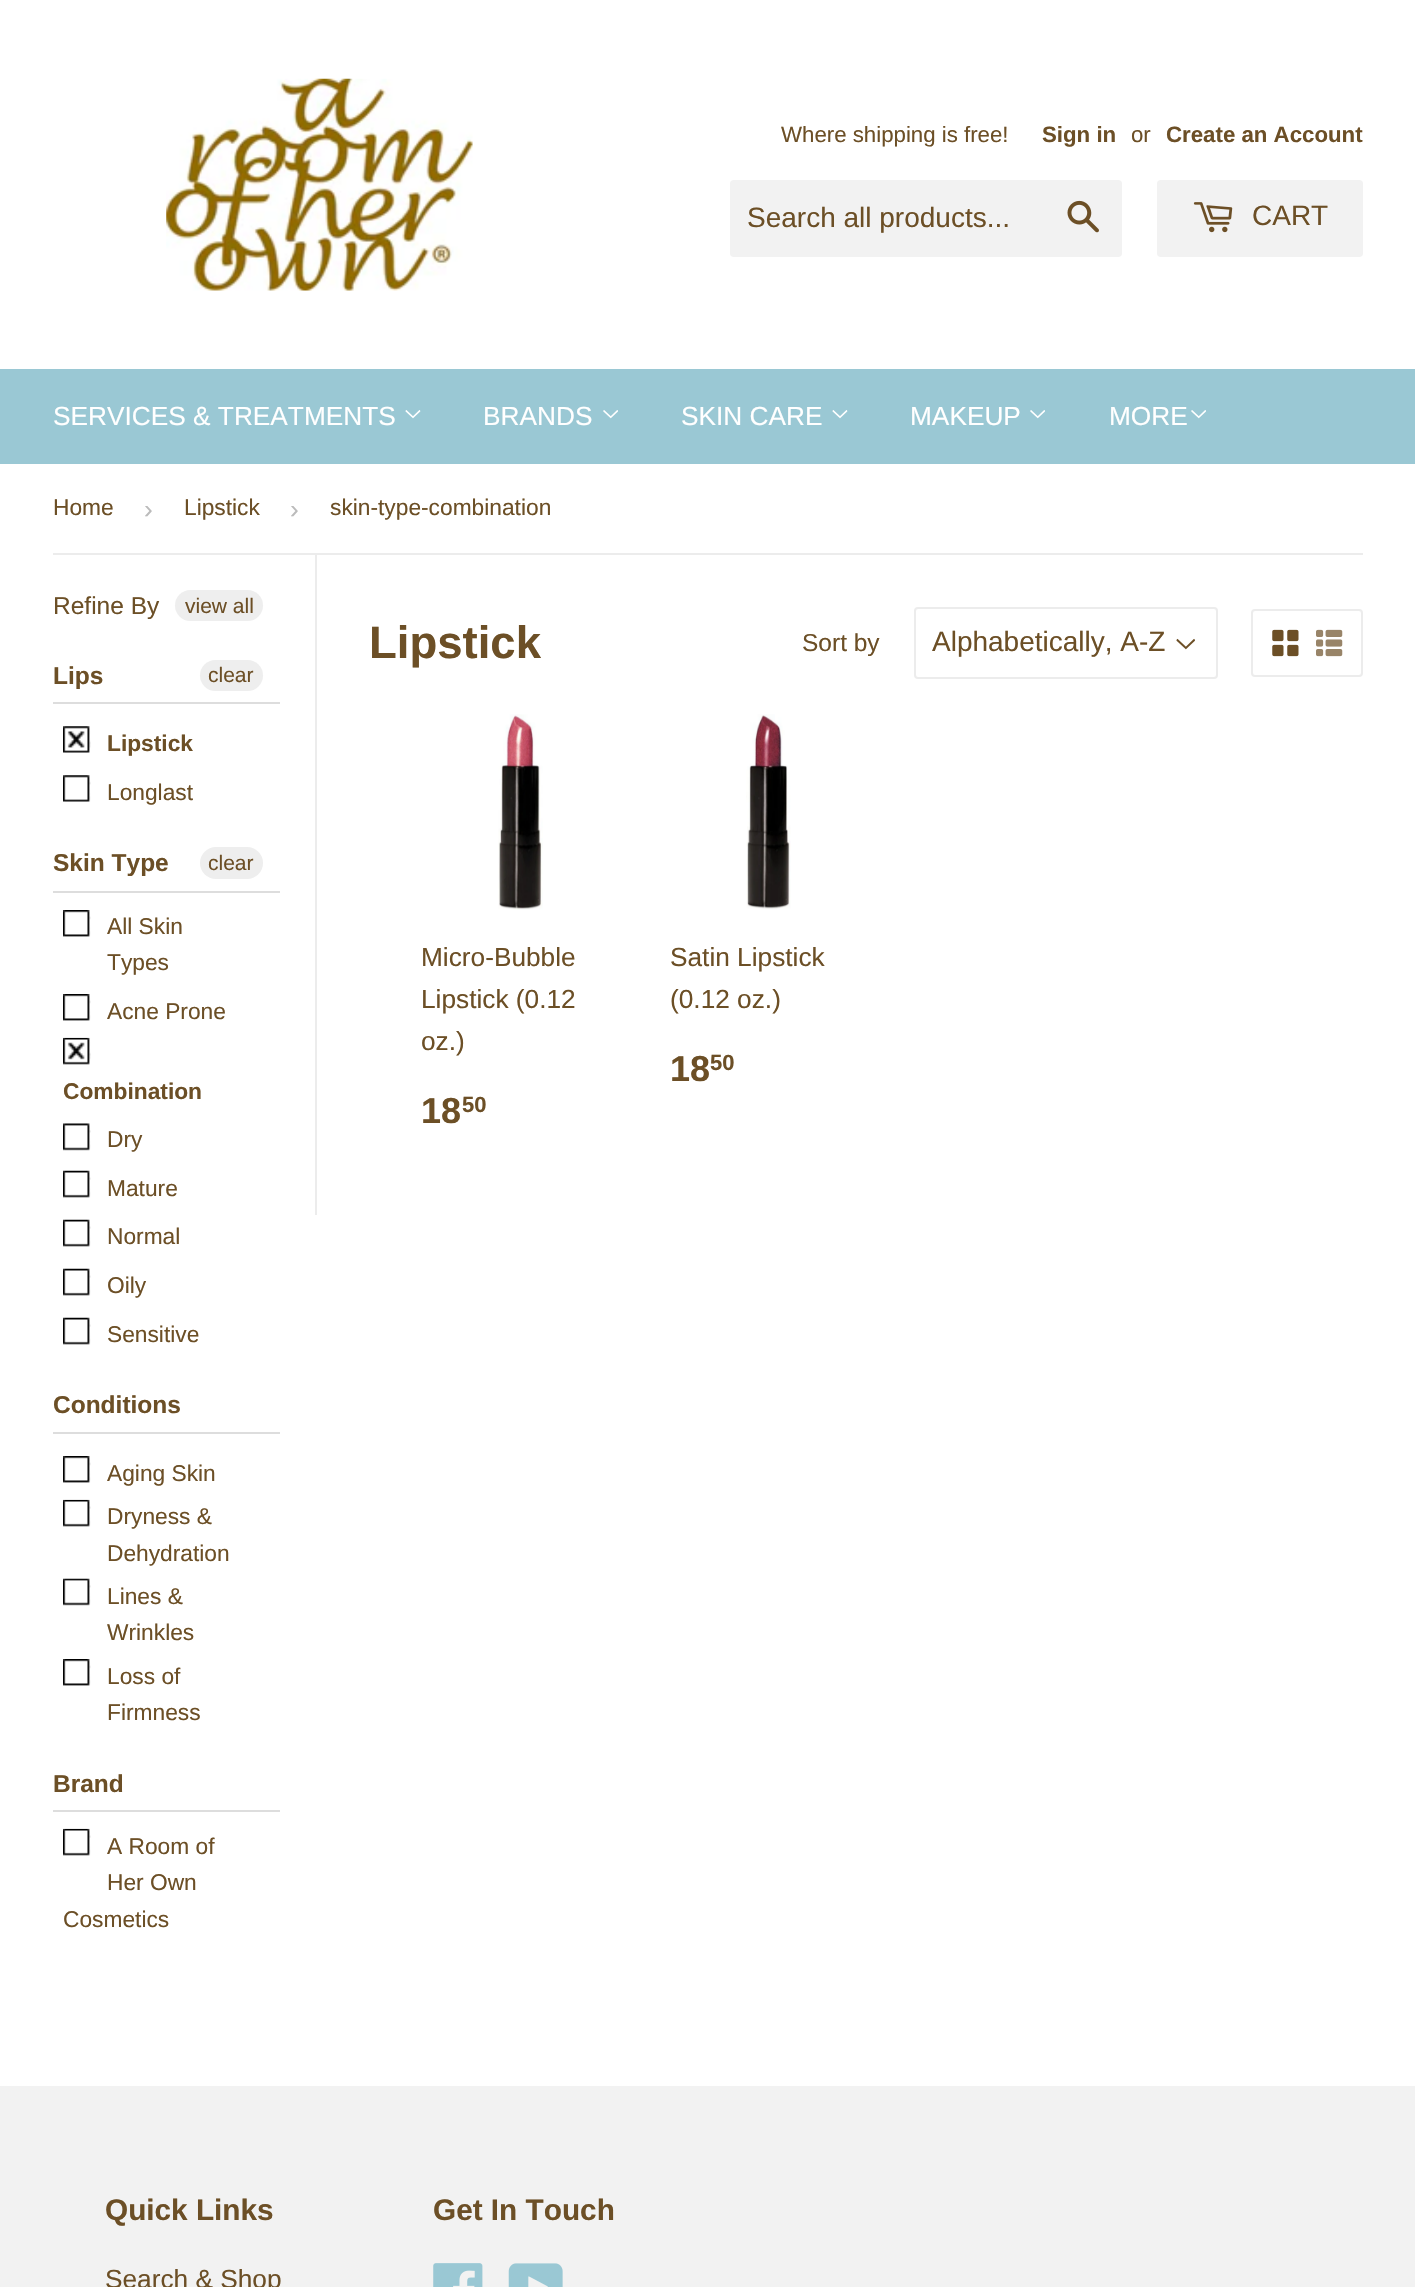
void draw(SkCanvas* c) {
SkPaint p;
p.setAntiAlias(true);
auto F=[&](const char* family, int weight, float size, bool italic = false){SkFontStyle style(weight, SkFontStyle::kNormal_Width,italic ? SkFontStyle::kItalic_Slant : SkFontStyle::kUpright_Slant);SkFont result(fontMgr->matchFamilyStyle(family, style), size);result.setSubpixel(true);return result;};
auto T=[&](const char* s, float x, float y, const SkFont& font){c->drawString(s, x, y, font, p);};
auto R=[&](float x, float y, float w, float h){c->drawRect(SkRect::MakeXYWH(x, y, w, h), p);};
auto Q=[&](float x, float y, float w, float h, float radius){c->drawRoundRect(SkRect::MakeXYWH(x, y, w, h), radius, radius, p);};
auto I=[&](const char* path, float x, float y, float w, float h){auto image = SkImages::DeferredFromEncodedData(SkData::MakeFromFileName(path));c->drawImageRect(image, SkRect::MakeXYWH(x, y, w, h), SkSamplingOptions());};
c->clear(0xffffffff);
I("1.png",166,78,307,213);
auto f1 = F("Liberation Sans",400,22.25);
p.setColor(0xff6c4f26);
T("Where shipping is free!",781,142,f1);
auto f2 = F("Liberation Sans",700,22.25);
T("Sign in",1042,142,f2);
T("or",1131,142,f1);
T("Create an Account",1166,142,f2);
p.setColor(0xfff2f2f2);
Q(730,180,392,77,4);
auto f3 = F("Liberation Sans",400,28);
p.setColor(0xff6c4f26);
T("Search all products...",747,227,f3);
I("2.png",1067,200,32,33);
p.setColor(0xfff2f2f2);
Q(1157,180,206,77,4);
I("3.png",1193,202,40,31);
p.setColor(0xff6c4f26);
T("CART",1252,225,f3);
p.setColor(0xff9ac8d4);
R(0,369,1415,95);
auto f4 = F("Liberation Sans",400,26.25);
p.setColor(0xffffffff);
T("SERVICES & TREATMENTS",53,425,f4);
I("4.png",405,410,16,9);
T("BRANDS",483,425,f4);
I("5.png",603,410,15,9);
T("SKIN CARE",681,425,f4);
I("4.png",832,410,16,9);
T("MAKEUP",910,425,f4);
I("5.png",1030,410,15,9);
T("MORE",1109,425,f4);
I("5.png",1191,410,15,9);
p.setColor(0xffececec);
R(53,553,1310,2);
auto f5 = F("Liberation Sans",400,22.75);
p.setColor(0xff6c4f26);
T("Home",53,515,f5);
p.setColor(0xffbbbbbb);
T("›",144,518,f4);
p.setColor(0xff6c4f26);
T("Lipstick",184,515,f5);
p.setColor(0xffbbbbbb);
T("›",290,518,f4);
p.setColor(0xff6c4f26);
T("skin-type-combination",330,515,f5);
auto f6 = F("Liberation Sans",400,24.5);
T("Refine By",53,614,f6);
p.setColor(0xffeeeeee);
Q(175,590,88,31,15.5);
auto f7 = F("Liberation Sans",400,21);
p.setColor(0xff6c4f26);
T("view all",185,613,f7);
p.setColor(0xffdddddd);
R(53,702,227,2);
auto f8 = F("Liberation Sans",700,24.5);
p.setColor(0xff6c4f26);
T("Lips",53,684,f8);
p.setColor(0xffeeeeee);
Q(200,660,63,31,15.5);
p.setColor(0xff6c4f26);
T("clear",208,682,f7);
I("6.png",63,726,28,27);
auto f9 = F("Liberation Sans",700,22.75);
T("Lipstick",107,751,f9);
I("7.png",63,775,28,27);
T("Longlast",107,800,f5);
p.setColor(0xffdddddd);
R(53,891,227,2);
p.setColor(0xff6c4f26);
T("Skin Type",53,871,f8);
p.setColor(0xffeeeeee);
Q(200,847,63,32,16);
p.setColor(0xff6c4f26);
T("clear",208,870,f7);
I("8.png",63,910,28,27);
T("All Skin",107,934,f5);
T("Types",107,970,f5);
I("8.png",63,994,28,27);
T("Acne Prone",107,1019,f5);
I("9.png",63,1037,28,28);
T("Combination",63,1099,f9);
I("10.png",63,1123,28,28);
T("Dry",107,1147,f5);
I("11.png",63,1170,28,28);
T("Mature",107,1196,f5);
I("11.png",63,1219,28,28);
T("Normal",107,1244,f5);
I("11.png",63,1268,28,28);
T("Oily",107,1293,f5);
I("11.png",63,1317,28,28);
T("Sensitive",107,1342,f5);
p.setColor(0xffdddddd);
R(53,1432,227,2);
p.setColor(0xff6c4f26);
T("Conditions",53,1413,f8);
I("8.png",63,1456,28,27);
T("Aging Skin",107,1481,f5);
I("12.png",63,1499,28,28);
T("Dryness &",107,1524,f5);
T("Dehydration",107,1561,f5);
I("13.png",63,1578,28,28);
T("Lines &",107,1604,f5);
T("Wrinkles",107,1640,f5);
I("8.png",63,1659,28,27);
T("Loss of",107,1684,f5);
T("Firmness",107,1720,f5);
p.setColor(0xffdddddd);
R(53,1810,227,2);
p.setColor(0xff6c4f26);
T("Brand",53,1792,f8);
I("14.png",63,1828,28,28);
T("A Room of",107,1854,f5);
T("Her Own",107,1890,f5);
T("Cosmetics",63,1927,f5);
p.setColor(0xffececec);
R(315,555,2,660);
auto f10 = F("Liberation Sans",700,45.5);
p.setColor(0xff6c4f26);
T("Lipstick",369,658,f10);
T("Sort by",802,651,f6);
I("15.png",1176,638,19,12);
p.setStroke(true);
p.setStrokeWidth(2);
p.setColor(0xffececec);
c->drawRoundRect(SkRect::MakeXYWH(915,608,302,70),3,3,p);
p.setStroke(false);
p.setColor(0xff6c4f26);
T("Alphabetically, A-Z",932,651,f3);
p.setStroke(true);
p.setColor(0xffececec);
c->drawRoundRect(SkRect::MakeXYWH(1252,610,110,66),3,3,p);
I("16.png",1272,629,27,28);
I("17.png",1316,629,27,28);
I("18.png",498,714,45,196);
p.setStroke(false);
p.setColor(0xff6c4f26);
T("Micro-Bubble",421,966,f4);
T("Lipstick (0.12",421,1008,f4);
T("oz.)",421,1050,f4);
auto f11 = F("Liberation Sans",700,36);
T("18",421,1123,f11);
auto f12 = F("Liberation Sans",700,22);
T("50",462,1112,f12);
I("19.png",746,714,45,196);
T("Satin Lipstick",670,966,f4);
T("(0.12 oz.)",670,1008,f4);
T("18",670,1081,f11);
T("50",710,1070,f12);
p.setColor(0xfff2f2f2);
R(0,2086,1415,201);
auto f13 = F("Liberation Sans",700,29.75);
p.setColor(0xff6c4f26);
T("Quick Links",105,2220,f13);
T("Search & Shop",105,2288,f4);
T("Get In Touch",433,2220,f13);
I("20.png",433,2263,50,24);
I("21.png",508,2263,55,24);
}
